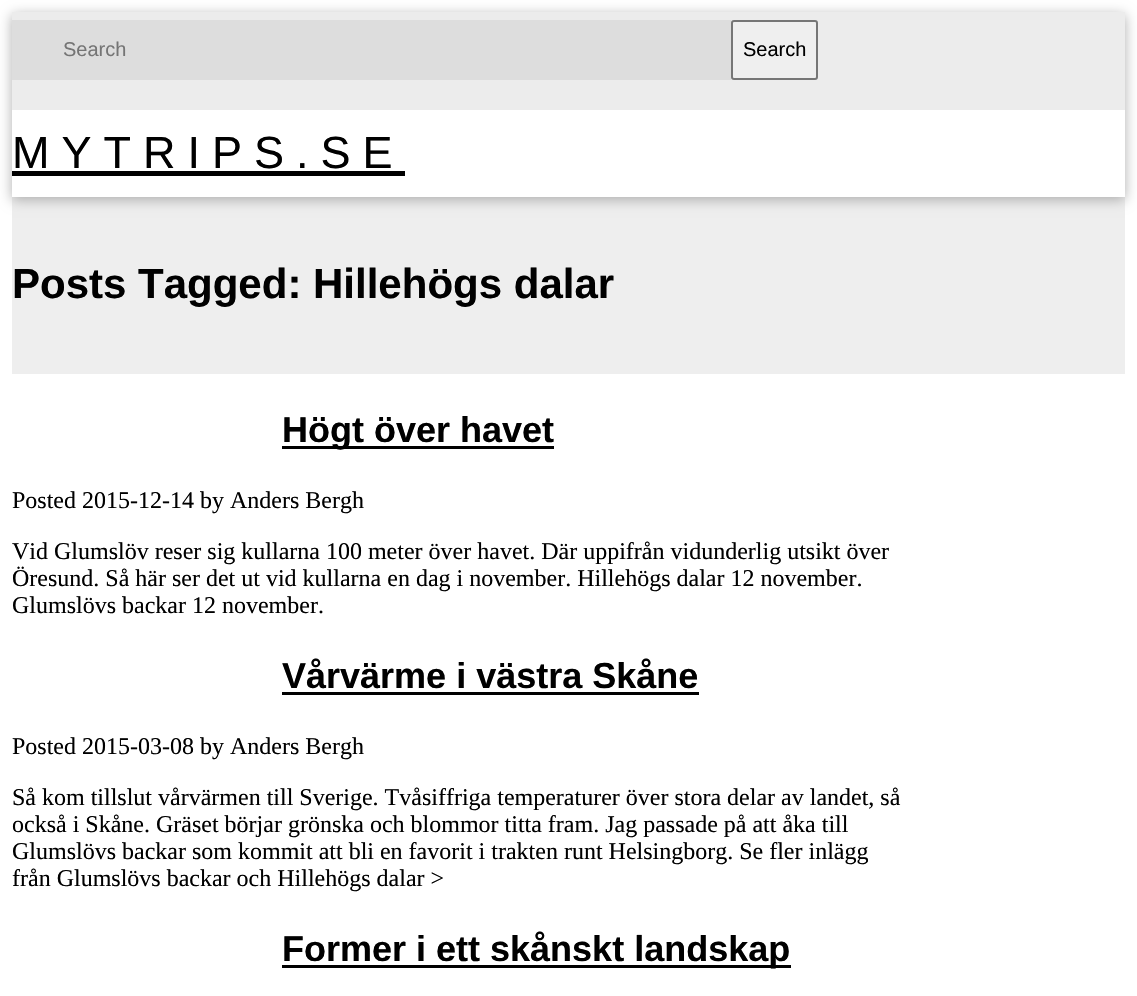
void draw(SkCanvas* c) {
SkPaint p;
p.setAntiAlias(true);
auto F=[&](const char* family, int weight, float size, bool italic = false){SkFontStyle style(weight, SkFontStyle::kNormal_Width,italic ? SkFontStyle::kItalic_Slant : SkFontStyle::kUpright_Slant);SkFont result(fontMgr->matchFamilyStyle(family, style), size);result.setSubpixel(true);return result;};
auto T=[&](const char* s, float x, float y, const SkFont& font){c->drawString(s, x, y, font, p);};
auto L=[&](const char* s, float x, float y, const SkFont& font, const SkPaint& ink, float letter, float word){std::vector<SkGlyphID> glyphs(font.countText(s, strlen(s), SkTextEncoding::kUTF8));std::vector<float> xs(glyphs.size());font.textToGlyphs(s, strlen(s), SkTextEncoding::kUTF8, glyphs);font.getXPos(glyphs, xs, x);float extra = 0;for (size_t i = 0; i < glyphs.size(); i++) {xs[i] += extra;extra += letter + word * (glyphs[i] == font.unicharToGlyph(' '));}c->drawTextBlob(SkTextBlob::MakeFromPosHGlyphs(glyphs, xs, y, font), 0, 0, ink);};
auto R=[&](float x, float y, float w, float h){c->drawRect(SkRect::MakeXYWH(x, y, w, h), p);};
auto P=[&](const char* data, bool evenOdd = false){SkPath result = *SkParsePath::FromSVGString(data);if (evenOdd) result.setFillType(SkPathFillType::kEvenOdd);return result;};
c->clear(0xffffffff);
p.setColor(0xffeeeeee);
R(12,197,1113,177);
c->save();
c->clipPath(P("M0 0h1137v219h-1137zm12 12h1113v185h-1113z",true),true);
p.setColor(0xffaeaeae);
p.setMaskFilter(SkMaskFilter::MakeBlur(kNormal_SkBlurStyle, 6));
c->drawRect(SkRect::MakeXYWH(12,15,1113,185),p);
p.setMaskFilter(nullptr);
c->restore();
p.setColor(0xffececec);
R(12,12,1113,98);
p.setColor(0xffdddddd);
R(12,20,719,60);
auto f1 = F("Liberation Sans",400,20);
p.setColor(0xff757575);
T("Search",63,56,f1);
p.setColor(0xffefefef);
c->drawRoundRect(SkRect::MakeXYWH(732,21,85,58),2,2,p);
p.setStroke(true);
p.setStrokeWidth(2);
p.setColor(0xff767676);
c->drawRoundRect(SkRect::MakeXYWH(732,21,85,58),2,2,p);
p.setStroke(false);
p.setColor(0xff000000);
T("Search",743,56,f1);
auto f2 = F("Liberation Sans",400,45);
L("MYTRIPS.SE",12,168,f2,p,12,0);
R(12,171,393,5);
auto f3 = F("Liberation Sans",700,42);
T("Posts Tagged: Hillehögs dalar",12,298,f3);
R(282,446,272,3);
auto f4 = F("Liberation Sans",700,36);
T("Högt över havet",282,442,f4);
auto f5 = F("Liberation Serif",400,24);
T("Posted 2015-12-14 by Anders Bergh",12,508,f5);
T("Vid Glumslöv reser sig kullarna 100 meter över havet. Där uppifrån vidunderlig utsikt över",12,559,f5);
T("Öresund. Så här ser det ut vid kullarna en dag i november. Hillehögs dalar 12 november.",12,586,f5);
T("Glumslövs backar 12 november.",12,613,f5);
T("Vårvärme i västra Skåne",282,688,f4);
R(282,692,417,3);
T("Posted 2015-03-08 by Anders Bergh",12,754,f5);
T("Så kom tillslut vårvärmen till Sverige. Tvåsiffriga temperaturer över stora delar av landet, så",12,805,f5);
T("också i Skåne. Gräset börjar grönska och blommor titta fram. Jag passade på att åka till",12,832,f5);
T("Glumslövs backar som kommit att bli en favorit i trakten runt Helsingborg. Se fler inlägg",12,859,f5);
T("från Glumslövs backar och Hillehögs dalar >",12,886,f5);
R(282,965,509,3);
T("Former i ett skånskt landskap",282,961,f4);
}
